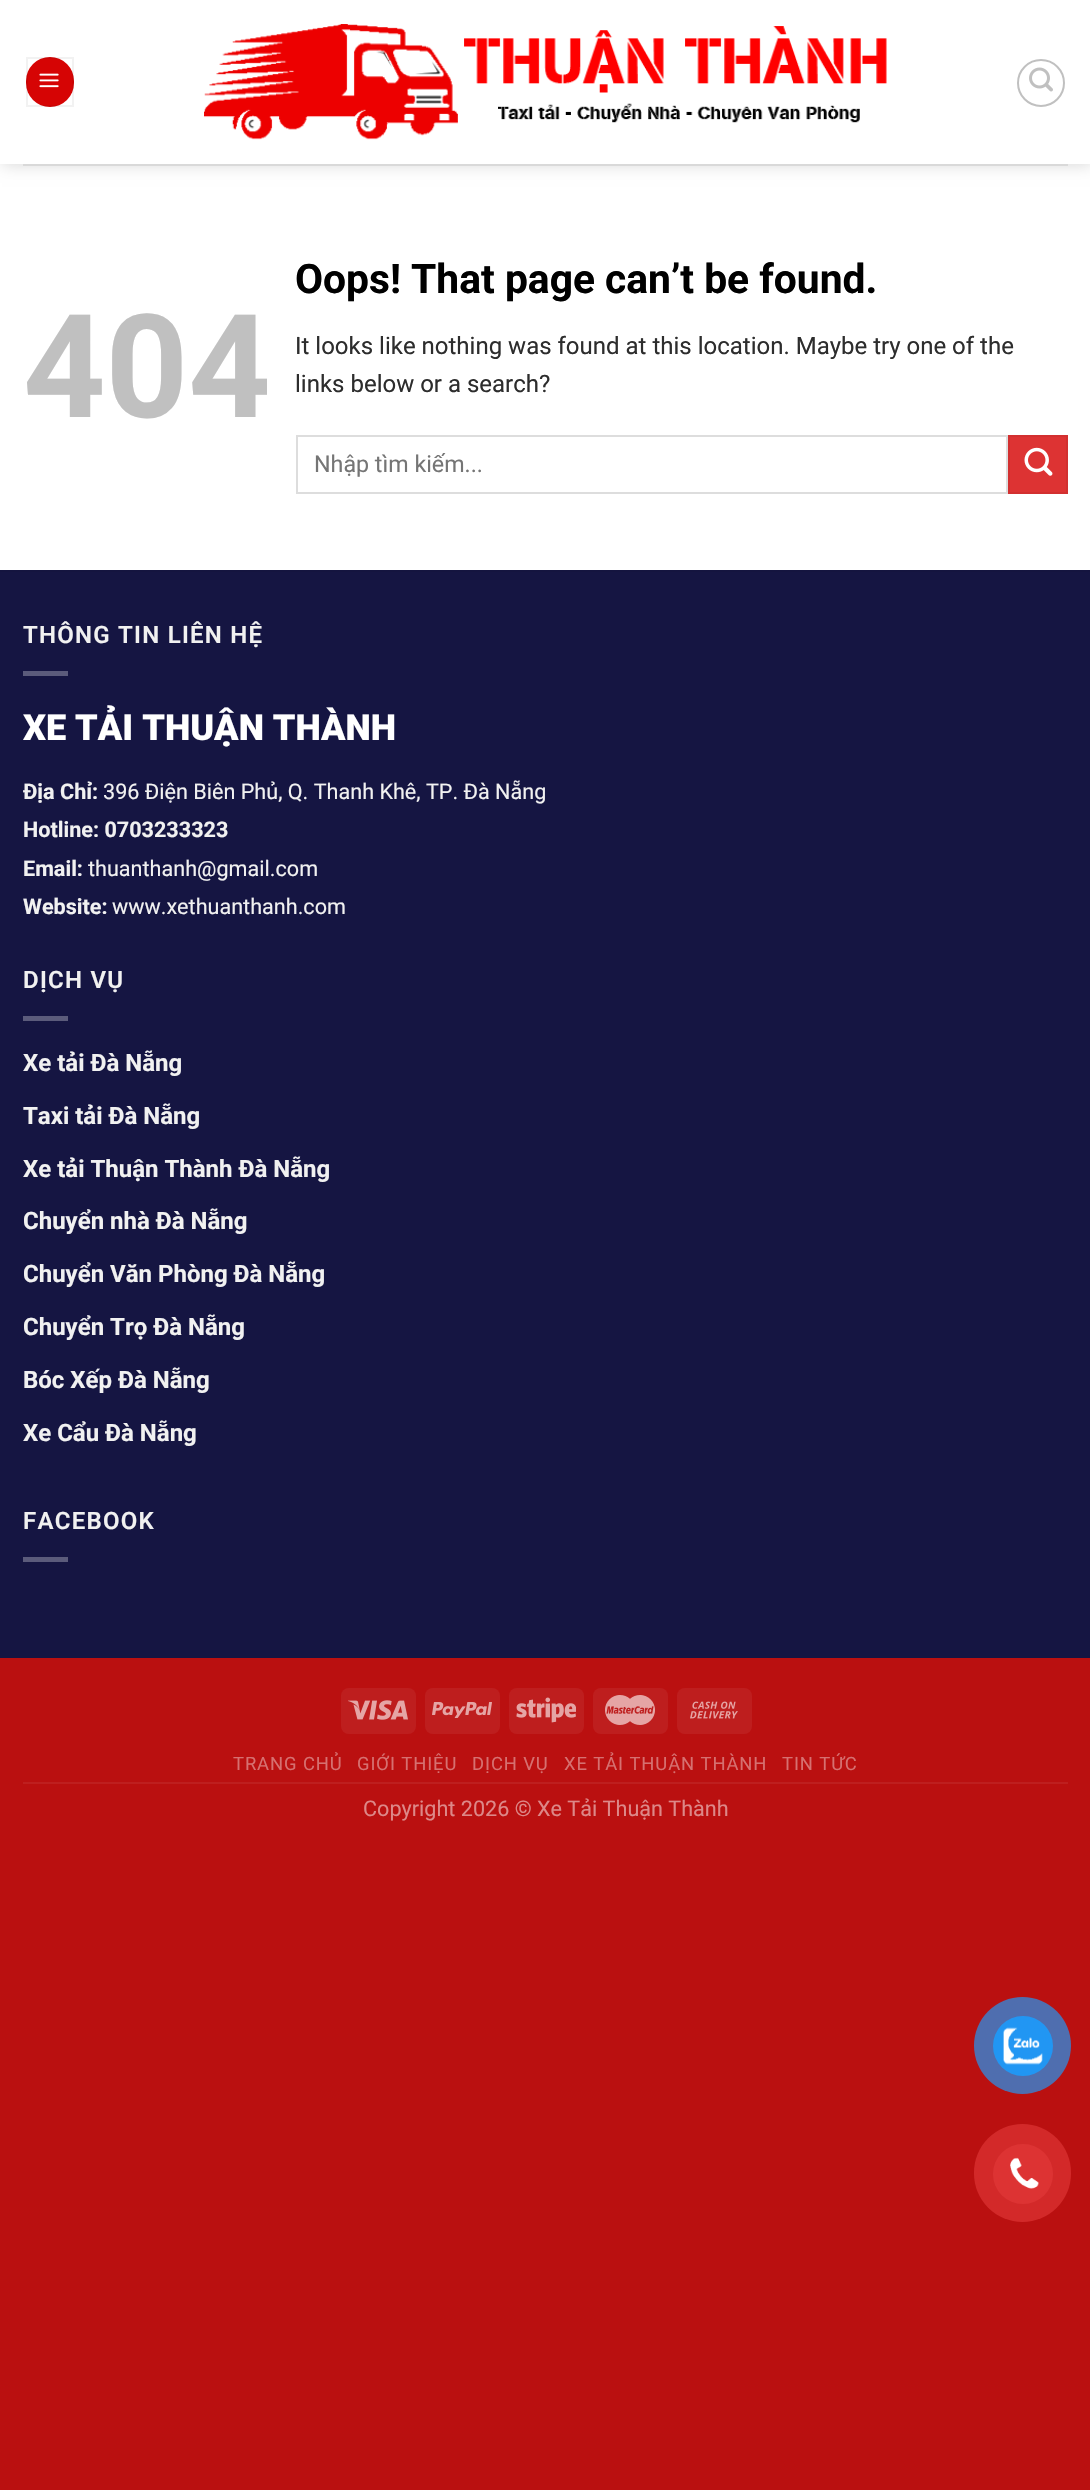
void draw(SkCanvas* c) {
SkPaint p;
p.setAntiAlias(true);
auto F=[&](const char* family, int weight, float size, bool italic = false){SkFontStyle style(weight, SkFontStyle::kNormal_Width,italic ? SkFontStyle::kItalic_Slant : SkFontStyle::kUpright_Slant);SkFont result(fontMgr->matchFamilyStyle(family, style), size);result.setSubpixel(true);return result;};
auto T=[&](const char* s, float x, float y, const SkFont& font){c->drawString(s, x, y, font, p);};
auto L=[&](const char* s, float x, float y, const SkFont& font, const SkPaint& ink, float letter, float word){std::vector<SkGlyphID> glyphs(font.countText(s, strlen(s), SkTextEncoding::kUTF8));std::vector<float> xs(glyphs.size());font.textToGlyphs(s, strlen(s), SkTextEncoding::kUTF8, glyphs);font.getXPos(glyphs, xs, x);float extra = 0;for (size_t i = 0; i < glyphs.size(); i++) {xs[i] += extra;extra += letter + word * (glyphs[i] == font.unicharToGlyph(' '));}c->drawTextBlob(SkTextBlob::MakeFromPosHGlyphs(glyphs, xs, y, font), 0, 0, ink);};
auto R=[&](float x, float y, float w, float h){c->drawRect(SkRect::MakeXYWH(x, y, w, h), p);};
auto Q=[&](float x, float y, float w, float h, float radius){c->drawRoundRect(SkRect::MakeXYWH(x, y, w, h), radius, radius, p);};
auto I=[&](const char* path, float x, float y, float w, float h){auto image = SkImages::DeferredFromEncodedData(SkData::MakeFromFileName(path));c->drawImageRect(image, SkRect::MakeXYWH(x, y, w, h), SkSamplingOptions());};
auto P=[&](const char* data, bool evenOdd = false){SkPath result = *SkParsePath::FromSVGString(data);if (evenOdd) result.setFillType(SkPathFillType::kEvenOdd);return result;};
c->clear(0xffba1010);
p.setColor(0xffffffff);
R(0,0,1090,570);
c->save();
c->clipPath(P("M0 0h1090v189h-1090zm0 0h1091v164h-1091z",true),true);
p.setColor(0x26000000);
p.setMaskFilter(SkMaskFilter::MakeBlur(kNormal_SkBlurStyle, 7.5));
c->drawRect(SkRect::MakeXYWH(2,2,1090,163),p);
p.setMaskFilter(nullptr);
c->restore();
p.setColor(0xffd60404);
Q(26,57,48,50,24);
p.setStroke(true);
p.setStrokeWidth(2);
p.setColor(0x0d000000);
c->drawRect(SkRect::MakeXYWH(27,58,46,48),p);
I("1.png",39,73,20,15);
I("2.png",204,24,683,116);
p.setColor(0xffc0c0c0);
c->drawCircle(1041,83,23,p);
I("3.png",1029,67,24,25);
p.setStroke(false);
p.setColor(0xffd9d9d9);
R(23,164,1045,2);
p.setColor(0xe6ffffff);
R(0,163,1090,1);
auto f1 = F("Roboto",700,144);
p.setColor(0xffc0c0c0);
T("404",23,417,f1);
auto f2 = F("Roboto",700,40.75);
p.setColor(0xff000000);
T("Oops! That page can’t be found.",295,293,f2);
auto f3 = F("Roboto",400,24);
p.setColor(0xff2d2d2d);
T("It looks like nothing was found at this location. Maybe try one of the",295,354,f3);
T("links below or a search?",295,392,f3);
p.setStroke(true);
p.setColor(0xffdddddd);
c->drawRect(SkRect::MakeXYWH(297,436,710,57),p);
auto f4 = F("Roboto",400,23.25);
p.setStroke(false);
p.setColor(0xff757575);
T("Nhập tìm kiếm...",314,472,f4);
p.setColor(0xffdd3333);
c->drawRect(SkRect::MakeXYWH(1009,436,58,57),p);
p.setStroke(true);
p.setColor(0xffd23030);
c->drawRect(SkRect::MakeXYWH(1009,436,58,57),p);
I("4.png",1024,447,29,29);
p.setStroke(false);
p.setColor(0xff151542);
R(0,572,1090,1086);
p.setColor(0xff14143f);
R(0,570,1090,2);
auto f5 = F("Roboto",600,24);
p.setColor(0xfff1f1f1);
L("THÔNG TIN LIÊN HỆ",23,643,f5,p,1.25,0);
p.setColor(0xff5b5b7b);
R(23,671,45,5);
auto f6 = F("Roboto",900,36);
p.setColor(0xffffffff);
T("XE TẢI THUẬN THÀNH",23,740,f6);
auto f7 = F("Roboto",700,21.6);
p.setColor(0xfff1f1f1);
T("Địa Chỉ:",23,799,f7);
auto f8 = F("Roboto",400,21.6);
T("396 Điện Biên Phủ, Q. Thanh Khê, TP. Đà Nẵng",103,799,f8);
T("Hotline: 0703233323",23,837,f7);
T("Email:",23,876,f7);
T("thuanthanh@gmail.com",88,876,f8);
T("Website:",23,914,f7);
T("www.xethuanthanh.com",112,914,f8);
L("DỊCH VỤ",23,988,f5,p,1.25,0);
p.setColor(0xff5b5b7b);
R(23,1016,45,5);
auto f9 = F("Roboto",700,24);
p.setColor(0xfff1f1f1);
T("Xe tải Đà Nẵng",23,1071,f9);
T("Taxi tải Đà Nẵng",23,1124,f9);
T("Xe tải Thuận Thành Đà Nẵng",23,1177,f9);
T("Chuyển nhà Đà Nẵng",23,1229,f9);
T("Chuyển Văn Phòng Đà Nẵng",23,1282,f9);
T("Chuyển Trọ Đà Nẵng",23,1335,f9);
T("Bóc Xếp Đà Nẵng",23,1388,f9);
T("Xe Cẩu Đà Nẵng",23,1441,f9);
L("FACEBOOK",23,1529,f5,p,1.25,0);
p.setColor(0xff5b5b7b);
R(23,1557,45,5);
p.setColor(0xffbe1e1e);
Q(341,1688,75,46,8);
I("5.png",348,1700,60,20);
Q(425,1688,75,46,8);
I("6.png",432,1702,60,16);
Q(509,1688,75,46,8);
I("7.png",516,1697,60,26);
Q(593,1688,75,46,8);
I("8.png",605,1695,50,30);
Q(677,1688,75,46,8);
I("9.png",690,1701,48,18);
p.setColor(0xffbe1f1f);
R(23,1782,1045,2);
auto f10 = F("Roboto",400,18.4);
p.setColor(0xffd67070);
L("TRANG CHỦ",233,1770,f10,p,.9,0);
L("GIỚI THIỆU",357,1770,f10,p,.9,0);
L("DỊCH VỤ",472,1770,f10,p,.9,0);
L("XE TẢI THUẬN THÀNH",564,1770,f10,p,.9,0);
L("TIN TỨC",782,1770,f10,p,.9,0);
p.setColor(0xffdd8888);
T("Copyright 2026 © Xe Tải Thuận Thành",363,1816,f8);
p.setColor(0xff4f6eaf);
c->drawCircle(1022.5,2045.5,48.5,p);
p.setColor(0xff2196f3);
c->drawCircle(1023,2046,30,p);
I("10.png",1003,2027,40,38);
p.setColor(0xffd32929);
Q(974,2124,97,98,48.5);
p.setColor(0xffdd3333);
c->drawCircle(1023,2174,30,p);
I("11.png",1010,2157,29,32);
}
